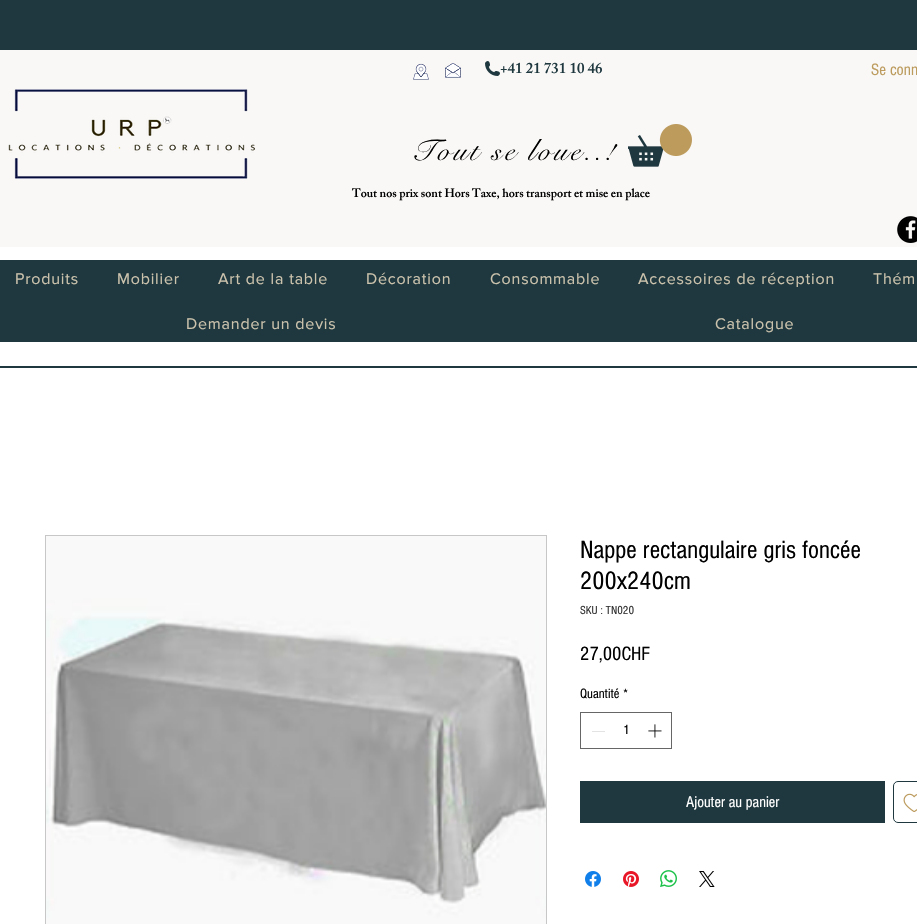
void draw(SkCanvas* c) {
SkPaint p;
p.setAntiAlias(true);
auto F=[&](const char* family, int weight, float size, bool italic = false){SkFontStyle style(weight, SkFontStyle::kNormal_Width,italic ? SkFontStyle::kItalic_Slant : SkFontStyle::kUpright_Slant);SkFont result(fontMgr->matchFamilyStyle(family, style), size);result.setSubpixel(true);return result;};
auto T=[&](const char* s, float x, float y, const SkFont& font){c->drawString(s, x, y, font, p);};
auto L=[&](const char* s, float x, float y, const SkFont& font, const SkPaint& ink, float letter, float word){std::vector<SkGlyphID> glyphs(font.countText(s, strlen(s), SkTextEncoding::kUTF8));std::vector<float> xs(glyphs.size());font.textToGlyphs(s, strlen(s), SkTextEncoding::kUTF8, glyphs);font.getXPos(glyphs, xs, x);float extra = 0;for (size_t i = 0; i < glyphs.size(); i++) {xs[i] += extra;extra += letter + word * (glyphs[i] == font.unicharToGlyph(' '));}c->drawTextBlob(SkTextBlob::MakeFromPosHGlyphs(glyphs, xs, y, font), 0, 0, ink);};
auto R=[&](float x, float y, float w, float h){c->drawRect(SkRect::MakeXYWH(x, y, w, h), p);};
auto I=[&](const char* path, float x, float y, float w, float h){auto image = SkImages::DeferredFromEncodedData(SkData::MakeFromFileName(path));c->drawImageRect(image, SkRect::MakeXYWH(x, y, w, h), SkSamplingOptions());};
c->clear(0xffffffff);
p.setColor(0xff1f383f);
R(0,0,917,50);
p.setColor(0xfff9f8f6);
R(0,50,917,197);
I("1.png",413,63,16,17);
I("2.png",445,63,16,15);
I("3.png",485,61,15,15);
auto f1 = F("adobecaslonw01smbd",600,15);
p.setColor(0xff1f383f);
T("+41 21 731 10 46",500,73,f1);
auto f2 = F("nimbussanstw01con",400,17);
p.setColor(0xffbc9b5d);
T("Se conn",871,75,f2);
I("4.png",8,89,247,90);
auto f3 = F("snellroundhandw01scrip",400,30);
p.setColor(0xff000000);
L("Tout se loue..!",411,160,f3,p,3,0);
I("5.png",628,124,64,43);
auto f4 = F("adobecaslonw01smbd",600,12);
T("Tout nos prix sont Hors Taxe, hors transport et mise en place",352,197,f4);
I("6.png",897,216,20,27);
p.setColor(0xff1f383f);
R(0,260,917,82);
auto f5 = F("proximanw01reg",400,16);
p.setColor(0xffccc3ad);
L("Produits",15,284,f5,p,.8,0);
L("Mobilier",117,284,f5,p,.8,0);
L("Art de la table",218,284,f5,p,.8,0);
L("Décoration",366,284,f5,p,.8,0);
L("Consommable",490,284,f5,p,.8,0);
L("Accessoires de réception",638,284,f5,p,.8,0);
L("Thém",873,284,f5,p,.8,0);
L("Demander un devis",186,329,f5,p,.8,0);
L("Catalogue",715,329,f5,p,.8,0);
p.setColor(0xff1f383f);
R(0,366,917,2);
p.setStroke(true);
p.setStrokeWidth(1);
p.setColor(0xffc7c7c7);
c->drawRect(SkRect::MakeXYWH(45.5,535.5,501,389),p);
I("7.png",46,536,500,388);
auto f6 = F("nimbussanstw01con",400,26);
p.setStroke(false);
p.setColor(0xff000000);
T("Nappe rectangulaire gris foncée",580,558,f6);
T("200x240cm",580,589,f6);
auto f7 = F("nimbussanstw01con",400,12);
p.setColor(0xff333333);
T("SKU : TN020",580,614,f7);
auto f8 = F("nimbussanstw01con",400,20);
p.setColor(0xff000000);
T("27,00CHF",580,660,f8);
auto f9 = F("nimbussanstw01con",400,14);
T("Quantité",580,698,f9);
T("*",623,698,f9);
p.setStroke(true);
p.setColor(0xff666666);
c->drawRect(SkRect::MakeXYWH(580.5,712.5,91,36),p);
p.setStroke(false);
p.setColor(0xffe3e3e3);
R(592,731,13,1);
p.setColor(0xff000000);
T("1",623,734,f9);
I("8.png",648,724,14,14);
p.setColor(0xff1f383f);
R(580,781,305,42);
auto f10 = F("nimbussanstw01con",400,16);
p.setColor(0xffffffff);
T("Ajouter au panier",686,807,f10);
p.setStroke(true);
p.setColor(0xff1f383f);
c->drawRoundRect(SkRect::MakeXYWH(893.5,781.5,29,41),4.5,4.5,p);
I("9.png",903,793,14,19);
I("10.png",585,871,16,16);
I("11.png",623,871,16,16);
I("12.png",660,870,17,17);
I("13.png",699,871,16,16);
}
